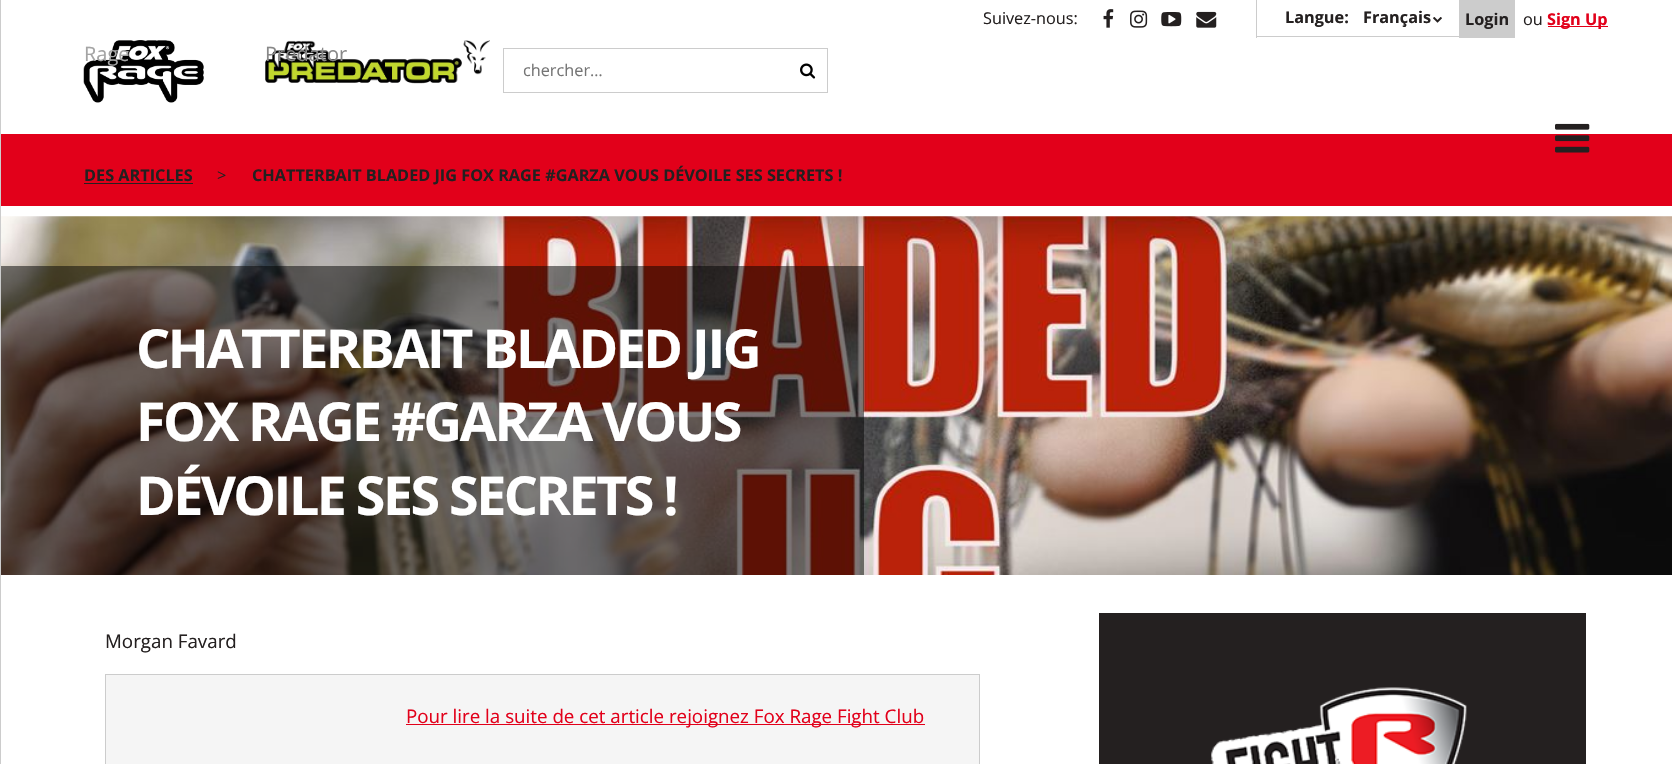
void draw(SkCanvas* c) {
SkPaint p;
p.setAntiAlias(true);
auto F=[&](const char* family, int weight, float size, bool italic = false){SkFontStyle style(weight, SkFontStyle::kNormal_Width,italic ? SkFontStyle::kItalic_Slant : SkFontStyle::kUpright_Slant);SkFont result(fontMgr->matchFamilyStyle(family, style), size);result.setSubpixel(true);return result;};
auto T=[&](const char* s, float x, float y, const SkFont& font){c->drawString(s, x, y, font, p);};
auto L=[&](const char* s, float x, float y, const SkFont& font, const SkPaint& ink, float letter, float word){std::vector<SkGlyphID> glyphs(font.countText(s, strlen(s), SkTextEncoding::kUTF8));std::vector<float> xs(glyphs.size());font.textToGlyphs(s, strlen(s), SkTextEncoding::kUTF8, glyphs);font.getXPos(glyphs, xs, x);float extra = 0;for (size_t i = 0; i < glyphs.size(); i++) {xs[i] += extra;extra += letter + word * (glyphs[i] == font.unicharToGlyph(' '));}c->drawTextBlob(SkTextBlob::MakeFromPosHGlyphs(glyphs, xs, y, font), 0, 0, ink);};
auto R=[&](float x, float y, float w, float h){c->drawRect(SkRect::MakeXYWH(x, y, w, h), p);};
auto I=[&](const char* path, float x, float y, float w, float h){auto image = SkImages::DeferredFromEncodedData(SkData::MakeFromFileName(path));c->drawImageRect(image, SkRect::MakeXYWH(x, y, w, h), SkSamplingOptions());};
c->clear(0xffffffff);
p.setColor(0xffcccccc);
R(0,0,1,764);
auto f1 = F("Open Sans",400,16.25);
p.setColor(0xff242020);
T("Suivez-nous:",983,24,f1);
I("1.png",1103,9,11,19);
I("2.png",1130,10,18,18);
I("3.png",1161,12,21,15);
I("4.png",1196,11,21,17);
p.setColor(0xffcccccc);
R(1459,0,56,38);
R(1256,36,205,1);
R(1256,0,1,38);
auto f2 = F("Open Sans",700,16.25);
p.setColor(0xff242020);
T("Langue:",1285,23,f2);
T("Français",1363,23,f2);
I("5.png",1433,17,9,6);
T("Login",1465,25,f2);
T("ou",1523,25,f1);
p.setColor(0xffe2001a);
R(1548,26,60,1);
T("Sign Up",1547,25,f2);
I("6.png",83,40,121,63);
auto f3 = F("Open Sans",400,20);
p.setColor(0xffa4a4a4);
T("Rage",84,61,f3);
I("7.png",265,40,225,44);
p.setColor(0xff888888);
T("Predator",265,61,f3);
p.setStroke(true);
p.setStrokeWidth(1);
p.setColor(0xffcccccc);
c->drawRect(SkRect::MakeXYWH(503.5,48.5,324,44),p);
p.setStroke(false);
p.setColor(0xff757575);
T("chercher…",523,76,f1);
I("8.png",800,63,16,16);
p.setColor(0xffe2001a);
R(1,134,1671,72);
I("9.png",1555,123,35,30);
p.setColor(0xff242020);
T("DES ARTICLES",84,181,f2);
R(84,183,109,1);
T(">",217,181,f1);
T("CHATTERBAIT BLADED JIG FOX RAGE #GARZA VOUS DÉVOILE SES SECRETS !",252,181,f2);
I("10.png",1,216,1671,359);
p.setColor(0x80000000);
R(84,266,780,309);
R(1,266,83,309);
auto f4 = F("Open Sans",700,53.75);
p.setColor(0xffffffff);
L("CHATTERBAIT BLADED JIG",136,368,f4,p,-2.5,0);
L("FOX RAGE #GARZA VOUS",136,441,f4,p,-2.5,0);
L("DÉVOILE SES SECRETS !",136,515,f4,p,-2.5,0);
auto f5 = F("Open Sans",400,18.75);
p.setColor(0xff242020);
T("Morgan Favard",105,648,f5);
p.setColor(0xfff5f5f5);
c->drawRect(SkRect::MakeXYWH(105.5,674.5,874,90),p);
p.setStroke(true);
p.setColor(0xffcccccc);
c->drawRect(SkRect::MakeXYWH(105.5,674.5,874,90),p);
p.setStroke(false);
p.setColor(0xffe2001a);
R(406,724,519,1);
T("Pour lire la suite de cet article rejoignez Fox Rage Fight Club",406,723,f5);
p.setColor(0xff242020);
R(1099,613,487,151);
I("11.png",1211,687,256,77);
}
